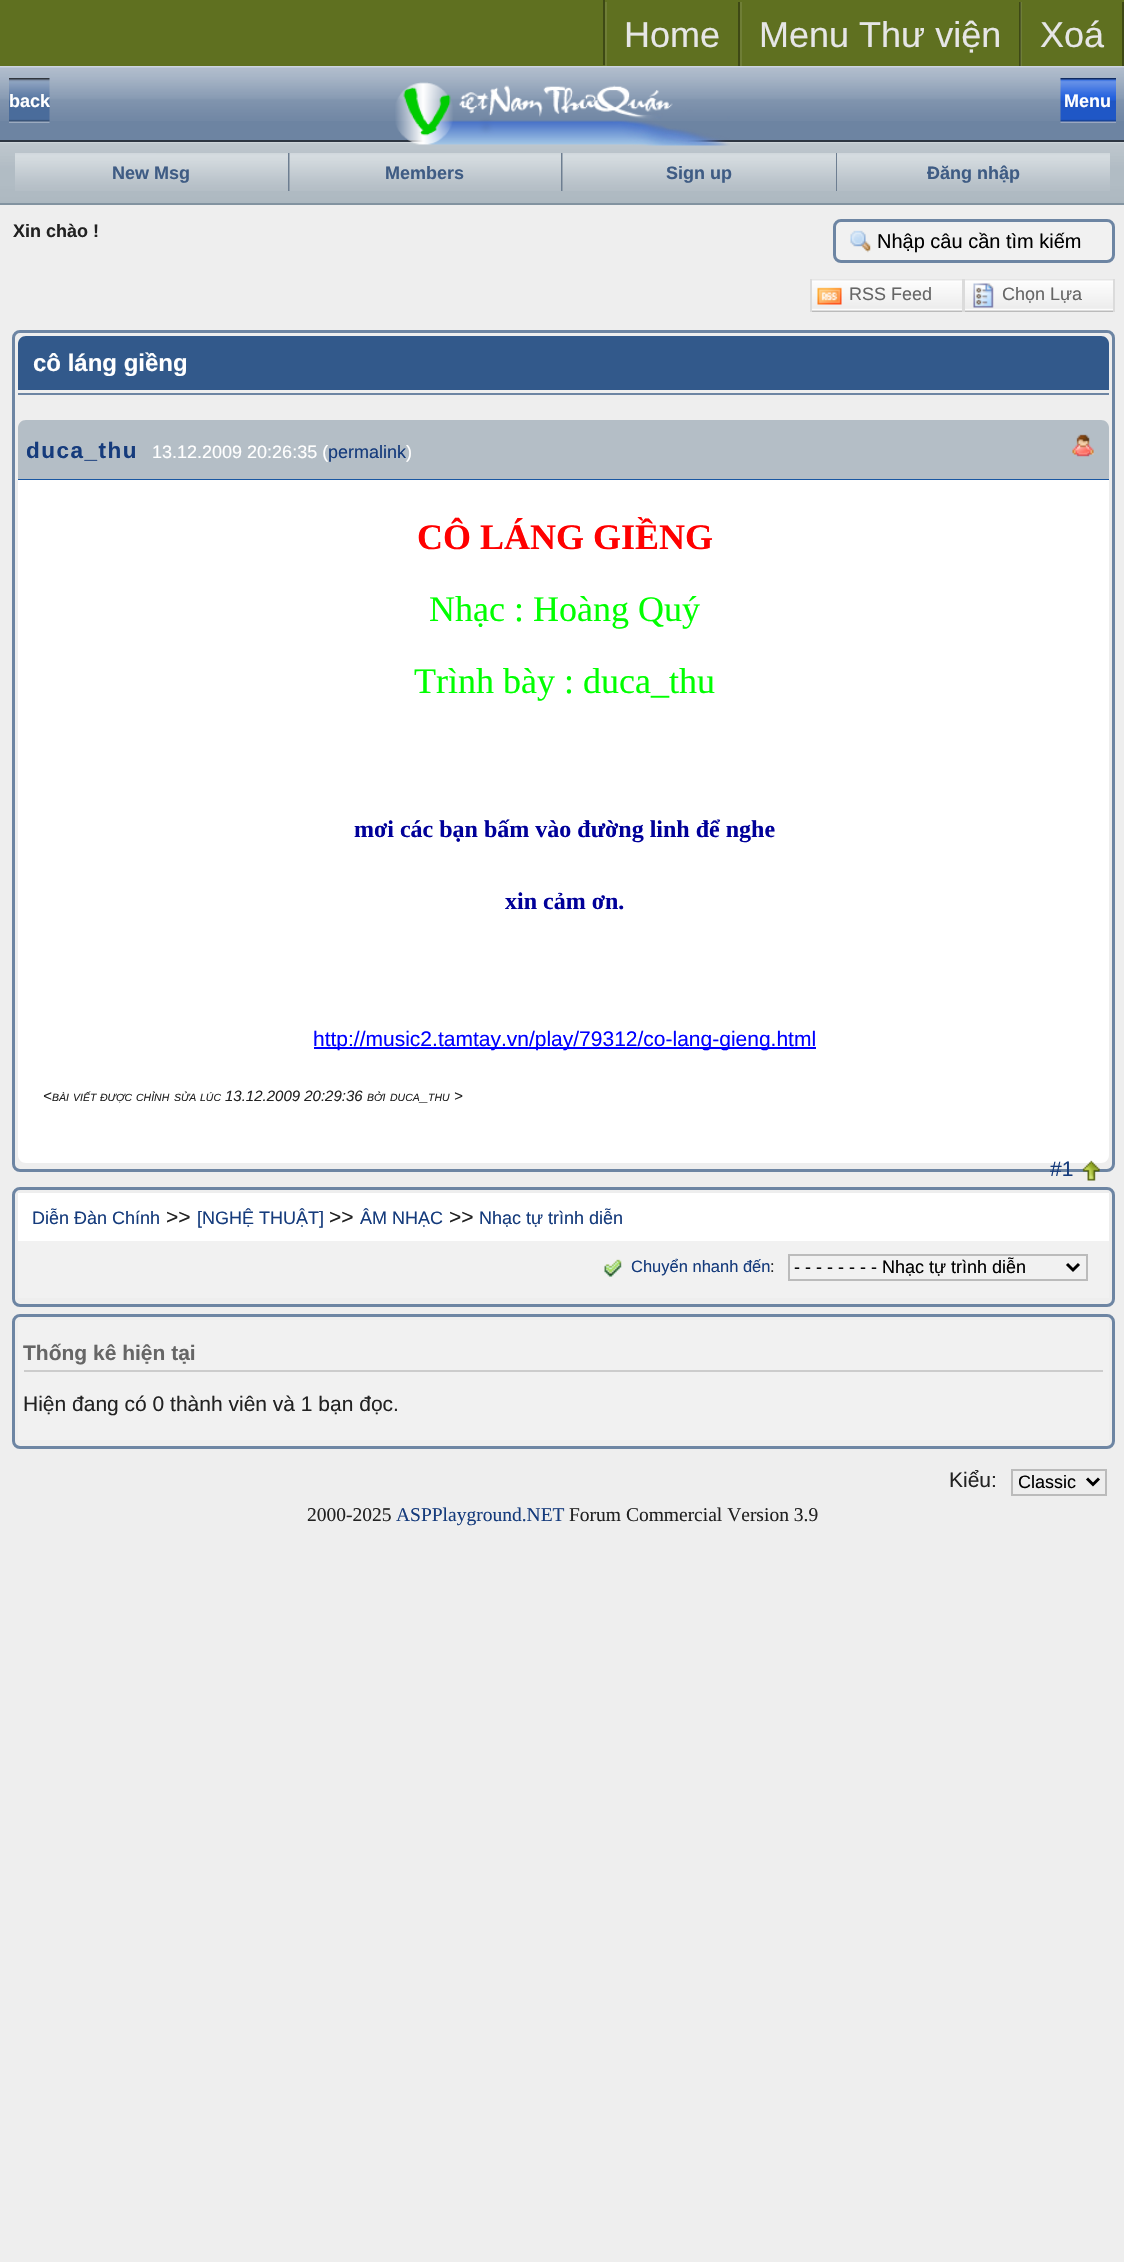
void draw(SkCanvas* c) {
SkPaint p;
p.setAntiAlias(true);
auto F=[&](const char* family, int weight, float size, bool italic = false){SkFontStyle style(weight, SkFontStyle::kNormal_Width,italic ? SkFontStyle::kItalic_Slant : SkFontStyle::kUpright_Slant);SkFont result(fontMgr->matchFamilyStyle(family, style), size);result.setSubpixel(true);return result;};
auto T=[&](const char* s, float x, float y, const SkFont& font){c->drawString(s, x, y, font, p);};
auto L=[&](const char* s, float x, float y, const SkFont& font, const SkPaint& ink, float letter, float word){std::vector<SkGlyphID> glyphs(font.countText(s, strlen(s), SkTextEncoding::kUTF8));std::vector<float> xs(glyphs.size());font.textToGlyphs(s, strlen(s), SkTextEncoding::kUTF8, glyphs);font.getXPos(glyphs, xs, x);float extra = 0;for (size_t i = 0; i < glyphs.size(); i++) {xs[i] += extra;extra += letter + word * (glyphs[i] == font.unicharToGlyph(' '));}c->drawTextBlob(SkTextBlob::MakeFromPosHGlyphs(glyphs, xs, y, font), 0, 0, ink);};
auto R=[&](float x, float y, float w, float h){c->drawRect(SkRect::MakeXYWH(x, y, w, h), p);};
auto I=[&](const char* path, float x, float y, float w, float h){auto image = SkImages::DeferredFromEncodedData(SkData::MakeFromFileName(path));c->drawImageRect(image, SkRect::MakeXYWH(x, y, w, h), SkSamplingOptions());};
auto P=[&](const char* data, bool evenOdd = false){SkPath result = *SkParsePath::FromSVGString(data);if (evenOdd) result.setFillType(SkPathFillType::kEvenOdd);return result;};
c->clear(0xffeeeeee);
p.setColor(0xff5f7020);
R(0,0,1124,66);
p.setColor(0xff6f7e36);
R(1021,2,1,64);
p.setColor(0xff3e4915);
R(603,0,2,65);
R(738,2,2,64);
p.setColor(0xff6f7e36);
R(605,2,2,64);
auto f1 = F("Liberation Sans",400,36);
p.setColor(0xffe6e6e6);
T("Home",624,47,f1);
p.setColor(0xff3e4915);
R(1019,2,1,64);
p.setColor(0xff515b2c);
R(1020,2,1,64);
p.setColor(0xff6f7e36);
R(740,2,2,64);
p.setColor(0xffe6e6e6);
T("Menu Thư viện",759,47,f1);
p.setColor(0xff3e4915);
R(1122,2,2,64);
p.setColor(0xffe6e6e6);
T("Xoá",1040,47,f1);
p.setColor(0xff6d84a2);
R(0,121,1124,19);
I("1.png",0,66,1124,55);
p.setColor(0xff2d3642);
R(0,140,1124,2);
I("2.png",9,78,41,45);
auto f2 = F("Liberation Sans",700,18);
p.setColor(0xffffffff);
T("back",9,107,f2);
I("5.png",0,143,1124,60);
p.setColor(0xffcdd4d9);
R(0,142,1124,1);
I("3.png",395,82,335,64);
I("4.png",1060,78,56,45);
p.setColor(0xffffffff);
T("Menu",1064,107,f2);
p.setColor(0xff8293a0);
R(0,203,1124,2);
I("6.png",15,153,273,38);
p.setColor(0xff6d7e91);
R(288,153,2,38);
p.setColor(0xff3f5c84);
T("New Msg",112,179,f2);
I("7.png",289,153,272,38);
p.setColor(0xff6d7e91);
R(561,153,2,38);
p.setColor(0xff3f5c84);
T("Members",385,179,f2);
I("8.png",562,153,274,38);
p.setColor(0xff6d7e91);
R(836,153,1,38);
p.setColor(0xff3f5c84);
T("Sign up",666,179,f2);
I("9.png",837,153,273,38);
T("Đăng nhập",927,179,f2);
p.setColor(0xff222222);
T("Xin chào !",13,237,f2);
p.setColor(0xfff1f1f1);
c->drawRoundRect(SkRect::MakeXYWH(834.5,220.5,279,41),6.5,6.5,p);
p.setStroke(true);
p.setStrokeWidth(3);
p.setColor(0xff6d85a3);
c->drawRoundRect(SkRect::MakeXYWH(834.5,220.5,279,41),6.5,6.5,p);
I("10.png",850,230,21,23);
auto f3 = F("Liberation Sans",400,20);
p.setStroke(false);
p.setColor(0xff000000);
T("Nhập câu cần tìm kiếm",877,248,f3);
I("11.png",812,279,150,33);
p.setColor(0xffdbdbdb);
R(962,279,3,33);
R(810,279,2,33);
I("12.png",817,287,25,18);
auto f4 = F("Liberation Sans",400,18);
p.setColor(0xff666666);
T("RSS Feed",849,300,f4);
I("13.png",965,279,148,33);
p.setColor(0xffdbdbdb);
R(1113,279,2,33);
I("14.png",973,283,21,25);
p.setColor(0xff666666);
T("Chọn Lựa",1002,300,f4);
p.setStroke(true);
p.setColor(0xff6d85a3);
c->drawRoundRect(SkRect::MakeXYWH(13.5,331.5,1100,839),6.5,6.5,p);
p.setStroke(false);
p.setColor(0xff32598b);
c->drawPath(P("M26 336h1075c4.5 0 8 3.5 8 8v46h-1091v-46c0-4.5 3.5-8 8-8z"),p);
auto f5 = F("Liberation Sans",700,24);
p.setColor(0xffffffff);
T("cô láng giềng",33,371,f5);
p.setColor(0xff6d85a3);
R(18,393,1091,2);
p.setColor(0xffb4bec6);
c->drawPath(P("M26 420h1075c4.5 0 8 3.5 8 8v52h-1091v-52c0-4.5 3.5-8 8-8z"),p);
p.setColor(0xff1957a2);
R(18,479,1091,1);
auto f6 = F("Liberation Sans",700,22.5);
p.setColor(0xff153b7c);
L("duca_thu",26,458,f6,p,1.5,0);
p.setColor(0xffffffff);
T("13.12.2009 20:26:35 (",152,458,f4);
p.setColor(0xff153b7c);
T("permalink",328,458,f4);
p.setColor(0xffffffff);
T(")",406,458,f4);
I("15.png",1072,434,22,23);
R(18,480,1091,671);
auto f7 = F("Liberation Serif",700,36);
p.setColor(0xffff0000);
T("CÔ LÁNG GIỀNG",417,549,f7);
auto f8 = F("Liberation Serif",400,36);
p.setColor(0xff00ff00);
T("Nhạc : Hoàng Quý",429,621,f8);
T("Trình bày : duca_thu",414,693,f8);
auto f9 = F("Liberation Serif",700,24);
p.setColor(0xff000099);
T("mơi các bạn bấm vào đường linh để nghe",354,837,f9);
T("xin cảm ơn.",505,909,f9);
p.setColor(0xff0000ff);
R(314,1047,502,2);
auto f10 = F("Liberation Sans",400,21);
T("http://music2.tamtay.vn/play/79312/co-lang-gieng.html",313,1046,f10);
auto f11 = F("Liberation Sans",400,15,true);
p.setColor(0xff222222);
T("<",43,1101,f11);
auto f12 = F("Liberation Sans",400,10.5,true);
T("BÀI",52,1101,f12);
T("VIẾT",73,1101,f12);
T("ĐƯỢC",100,1101,f12);
T("CHỈNH",136,1101,f12);
T("SỬA",174,1101,f12);
T("LÚC",200,1101,f12);
T("13.12.2009 20:29:36",225,1101,f11);
T("BỞI",367,1101,f12);
T("DUCA",390,1101,f12);
T("THU",428,1101,f12);
T(">",454,1101,f11);
T("_",420,1101,f11);
p.setColor(0xffffffff);
c->drawPath(P("M18 1151h1091v4c0 4.5-3.5 8-8 8h-1075c-4.5 0-8-3.5-8-8z"),p);
p.setColor(0xff153b7c);
T("#1",1050,1176,f10);
I("16.png",1082,1160,18,21);
p.setStroke(true);
p.setColor(0xff6d85a3);
c->drawRoundRect(SkRect::MakeXYWH(13.5,1188.5,1100,117),6.5,6.5,p);
p.setStroke(false);
p.setColor(0xffffffff);
R(18,1193,1091,48);
p.setColor(0xff153b7c);
T("Diễn Đàn Chính",32,1224,f4);
p.setColor(0xff222222);
T(">>",166,1224,f10);
p.setColor(0xff153b7c);
T("[NGHỆ THUẬT]",197,1224,f4);
p.setColor(0xff222222);
T(">>",329,1224,f10);
p.setColor(0xff153b7c);
T("ÂM NHẠC",360,1224,f4);
p.setColor(0xff222222);
T(">>",449,1224,f10);
p.setColor(0xff153b7c);
T("Nhạc tự trình diễn",479,1224,f4);
p.setColor(0xfff1f1f1);
R(18,1241,1091,57);
I("17.png",604,1259,18,18);
auto f13 = F("Liberation Sans",400,16.5);
p.setColor(0xff153b7c);
T("Chuyển nhanh đến",631,1272,f13);
p.setColor(0xff222222);
T(":",770,1272,f13);
p.setStroke(true);
p.setStrokeWidth(2);
p.setColor(0xffbbbbbb);
c->drawRect(SkRect::MakeXYWH(789,1255,298,25),p);
p.setStrokeWidth(3);
p.setColor(0xff000000);
c->drawPath(P("M1067 1264l6 6l6-6"),p);
p.setStroke(false);
T("- - - - - - - - Nhạc tự trình diễn",794,1273,f4);
p.setStroke(true);
p.setColor(0xff6d85a3);
c->drawRoundRect(SkRect::MakeXYWH(13.5,1315.5,1100,132),6.5,6.5,p);
p.setStroke(false);
p.setColor(0xfff1f1f1);
R(18,1320,1091,120);
p.setColor(0xffcccccc);
R(24,1370,1079,2);
auto f14 = F("Liberation Sans",700,21);
p.setColor(0xff666666);
T("Thống kê hiện tại",23,1360,f14);
p.setColor(0xff222222);
T("Hiện đang có 0 thành viên và 1 bạn đọc.",23,1411,f10);
T("Kiểu:",949,1487,f10);
p.setStroke(true);
p.setStrokeWidth(2);
p.setColor(0xffbbbbbb);
c->drawRect(SkRect::MakeXYWH(1012,1470,94,25),p);
p.setStrokeWidth(3);
p.setColor(0xff000000);
c->drawPath(P("M1087 1478.5l6 6l6-6"),p);
c->save();
c->clipRect(SkRect::MakeXYWH(1019,1470,63,24));
p.setStroke(false);
T("Classic",1018,1488,f4);
c->restore();
auto f15 = F("Liberation Serif",400,19.5);
p.setColor(0xff222222);
T("2000-2025",307,1521,f15);
p.setColor(0xff153b7c);
T("ASPPlayground.NET",396,1521,f15);
p.setColor(0xff222222);
T("Forum Commercial Version 3.9",569,1521,f15);
}
